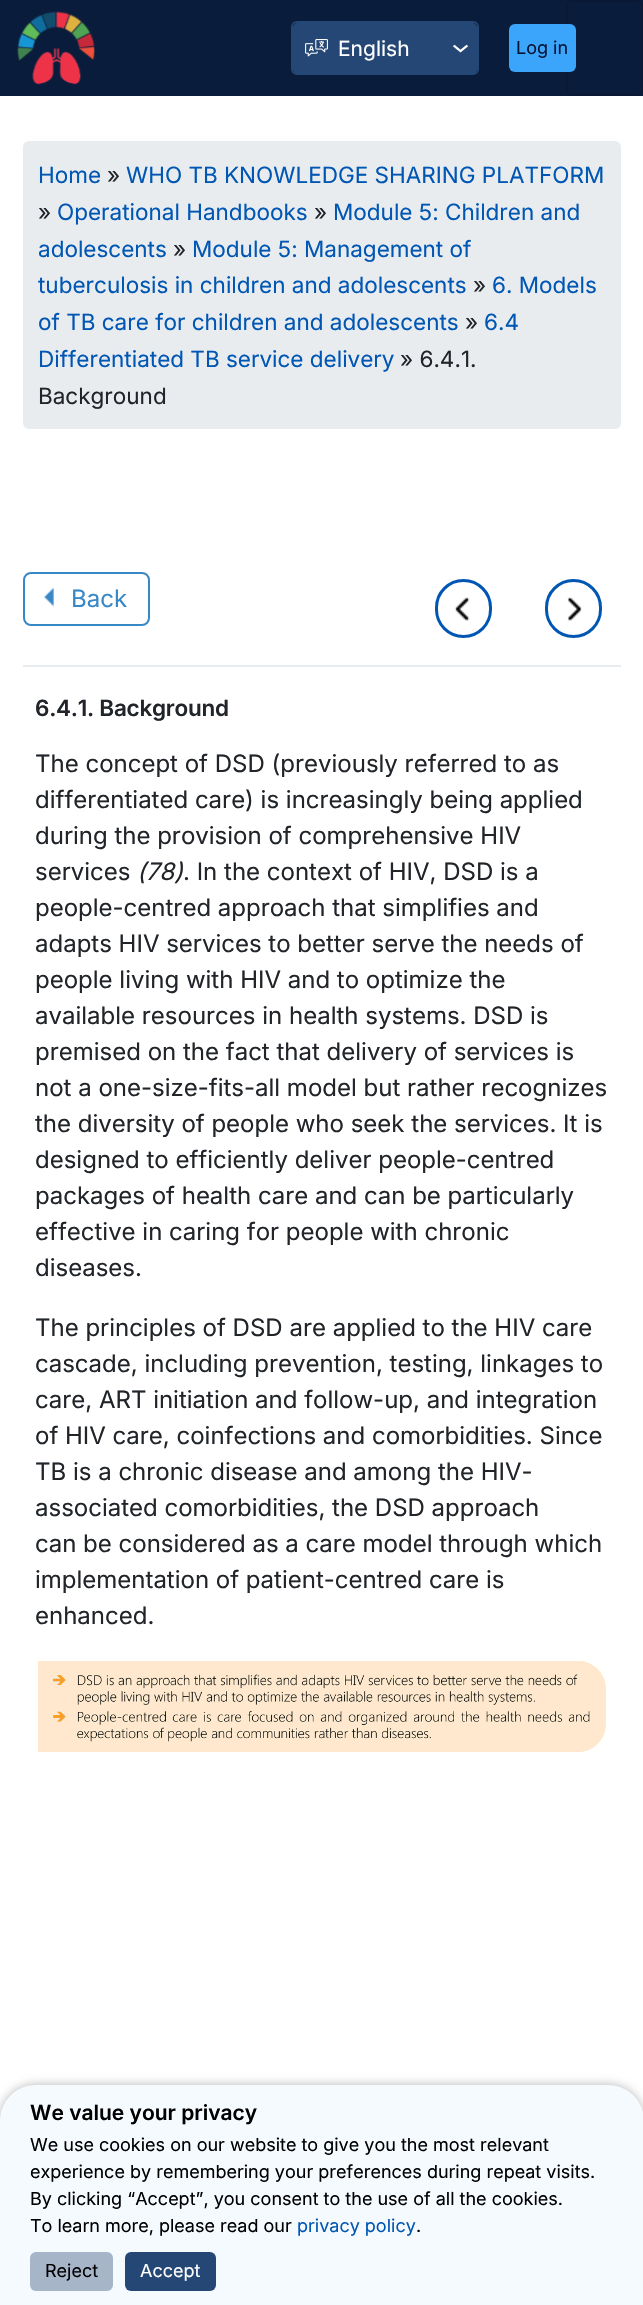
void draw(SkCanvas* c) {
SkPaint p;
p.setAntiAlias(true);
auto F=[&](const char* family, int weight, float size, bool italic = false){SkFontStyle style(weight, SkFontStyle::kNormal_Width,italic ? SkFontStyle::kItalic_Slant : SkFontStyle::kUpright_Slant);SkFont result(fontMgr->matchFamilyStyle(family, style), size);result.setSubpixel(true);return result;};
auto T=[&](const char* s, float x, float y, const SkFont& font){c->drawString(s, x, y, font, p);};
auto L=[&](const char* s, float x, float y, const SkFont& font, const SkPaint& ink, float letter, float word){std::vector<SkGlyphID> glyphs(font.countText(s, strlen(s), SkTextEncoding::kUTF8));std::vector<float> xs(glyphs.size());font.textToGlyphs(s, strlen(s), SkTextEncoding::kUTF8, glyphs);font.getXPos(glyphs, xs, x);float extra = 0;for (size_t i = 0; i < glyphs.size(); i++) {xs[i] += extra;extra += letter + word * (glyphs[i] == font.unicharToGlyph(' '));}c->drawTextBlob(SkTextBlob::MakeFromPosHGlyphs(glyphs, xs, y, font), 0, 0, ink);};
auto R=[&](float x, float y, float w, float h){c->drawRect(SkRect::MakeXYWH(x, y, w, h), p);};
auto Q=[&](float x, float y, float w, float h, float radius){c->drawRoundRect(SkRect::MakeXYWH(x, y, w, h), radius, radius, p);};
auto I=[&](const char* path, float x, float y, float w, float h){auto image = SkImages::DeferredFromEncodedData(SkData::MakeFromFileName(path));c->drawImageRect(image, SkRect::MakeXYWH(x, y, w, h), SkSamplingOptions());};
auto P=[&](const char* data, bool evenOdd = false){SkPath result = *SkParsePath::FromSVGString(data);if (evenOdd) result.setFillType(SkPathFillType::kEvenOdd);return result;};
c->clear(0xffffffff);
p.setColor(0xff0a1c3b);
R(0,0,643,96);
I("1.png",17,11,78,74);
p.setColor(0xff244775);
Q(293,23,184,51,5);
I("2.png",452,44,17,9);
I("3.png",305,39,23,18);
p.setStroke(true);
p.setStrokeWidth(2);
c->drawRoundRect(SkRect::MakeXYWH(292,22,186,52),5,5,p);
auto f1 = F("Inter",400,21);
p.setStroke(false);
p.setColor(0xffffffff);
T("English",338,56,f1);
p.setStroke(true);
p.setColor(0xff091935);
c->drawRoundRect(SkRect::MakeXYWH(567,1,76,94),5,5,p);
p.setStroke(false);
p.setColor(0xff3ba5fb);
Q(509,24,67,48,6);
auto f2 = F("Inter",400,18);
p.setColor(0xff051433);
T("Log in",516,54,f2);
p.setColor(0xffe9ecef);
Q(23,141,598,288,6);
auto f3 = F("Inter",400,22.5);
p.setColor(0xff0056b3);
T("Home",38,183,f3);
p.setColor(0xff212529);
T("»",107,183,f3);
p.setColor(0xff0056b3);
T("WHO TB KNOWLEDGE SHARING PLATFORM",126,183,f3);
p.setColor(0xff212529);
T("»",38,220,f3);
p.setColor(0xff0056b3);
T("Operational Handbooks",57,220,f3);
p.setColor(0xff212529);
T("»",314,220,f3);
p.setColor(0xff0056b3);
T("Module 5: Children and",333,220,f3);
T("adolescents",38,257,f3);
p.setColor(0xff212529);
T("»",173,257,f3);
p.setColor(0xff0056b3);
T("Module 5: Management of",192,257,f3);
T("tuberculosis in children and adolescents",38,293,f3);
p.setColor(0xff212529);
T("»",473,293,f3);
p.setColor(0xff0056b3);
T("6. Models",492,293,f3);
T("of TB care for children and adolescents",38,330,f3);
p.setColor(0xff212529);
T("»",465,330,f3);
p.setColor(0xff0056b3);
T("6.4",484,330,f3);
T("Differentiated TB service delivery",38,367,f3);
p.setColor(0xff212529);
T("» 6.4.1.",400,367,f3);
T("Background",38,404,f3);
p.setColor(0xffe9ecef);
R(23,665,598,2);
p.setStroke(true);
p.setStrokeWidth(3);
p.setColor(0xff0056b3);
c->drawRoundRect(SkRect::MakeXYWH(436.5,580.5,54,56),27,27,p);
I("4.png",455,597,15,24);
c->drawRoundRect(SkRect::MakeXYWH(546.5,580.5,54,56),27,27,p);
I("5.png",567,597,15,24);
p.setStrokeWidth(2);
p.setColor(0xff3788c7);
c->drawRoundRect(SkRect::MakeXYWH(24,573,125,52),7,7,p);
I("6.png",44,587,10,20);
auto f4 = F("Inter",400,24);
p.setStroke(false);
T("Back",71,607,f4);
auto f5 = F("Inter",600,22.5);
p.setColor(0xff212529);
L("6.4.1. Background",35,716,f5,p,-.25,0);
T("The concept of DSD (previously referred to as",35,772,f4);
T("differentiated care) is increasingly being applied",35,808,f4);
T("during the provision of comprehensive HIV",35,844,f4);
T("services",35,880,f4);
auto f6 = F("Inter",400,24,true);
T("(78)",137,880,f6);
T(". In the context of HIV, DSD is a",183,880,f4);
T("people-centred approach that simplifies and",35,916,f4);
T("adapts HIV services to better serve the needs of",35,952,f4);
T("people living with HIV and to optimize the",35,988,f4);
T("available resources in health systems. DSD is",35,1024,f4);
T("premised on the fact that delivery of services is",35,1060,f4);
T("not a one-size-fits-all model but rather recognizes",35,1096,f4);
T("the diversity of people who seek the services. It is",35,1132,f4);
T("designed to efficiently deliver people-centred",35,1168,f4);
T("packages of health care and can be particularly",35,1204,f4);
T("effective in caring for people with chronic",35,1240,f4);
T("diseases.",35,1276,f4);
T("The principles of DSD are applied to the HIV care",35,1336,f4);
T("cascade, including prevention, testing, linkages to",35,1372,f4);
T("care, ART initiation and follow-up, and integration",35,1408,f4);
T("of HIV care, coinfections and comorbidities. Since",35,1444,f4);
T("TB is a chronic disease and among the HIV-",35,1480,f4);
T("associated comorbidities, the DSD approach",35,1516,f4);
T("can be considered as a care model through which",35,1552,f4);
T("implementation of patient-centred care is",35,1588,f4);
T("enhanced.",35,1624,f4);
I("7.png",38,1661,568,91);
p.setColor(0x40000000);
p.setMaskFilter(SkMaskFilter::MakeBlur(kNormal_SkBlurStyle, 5));
c->drawRoundRect(SkRect::MakeXYWH(0,2084,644,220),36,36,p);
p.setMaskFilter(nullptr);
p.setColor(0xfff5faff);
c->drawPath(P("M36 2085h572c20 0 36 16 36 36v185h-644v-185c0-20 16-36 36-36z"),p);
auto f7 = F("Inter",600,21);
p.setColor(0xff000000);
T("We value your privacy",30,2120,f7);
T("We use cookies on our website to give you the most relevant",30,2151,f2);
T("experience by remembering your preferences during repeat visits.",30,2178,f2);
T("By clicking “Accept”, you consent to the use of all the cookies.",30,2205,f2);
T("To learn more, please read our",30,2232,f2);
p.setColor(0xff0056b3);
T("privacy policy",297,2232,f2);
p.setColor(0xff000000);
T(".",416,2232,f2);
p.setColor(0xffa7b5c8);
Q(30,2252,83,39,6);
p.setColor(0xff000000);
T("Reject",45,2277,f2);
p.setColor(0xff244775);
Q(125,2252,91,39,6);
p.setColor(0xffffffff);
T("Accept",140,2277,f2);
}
